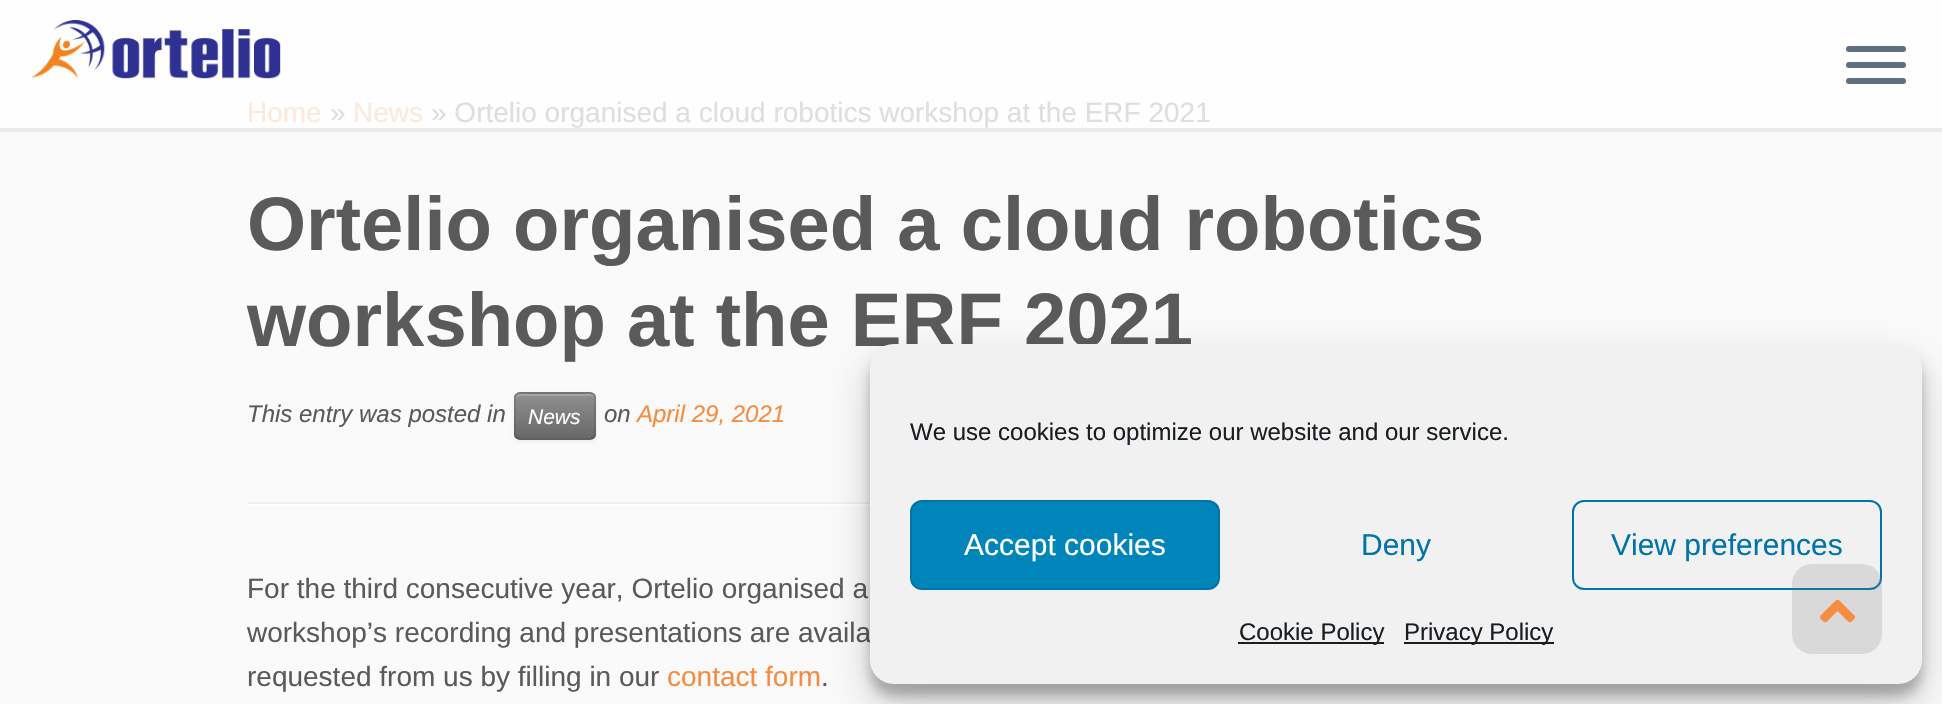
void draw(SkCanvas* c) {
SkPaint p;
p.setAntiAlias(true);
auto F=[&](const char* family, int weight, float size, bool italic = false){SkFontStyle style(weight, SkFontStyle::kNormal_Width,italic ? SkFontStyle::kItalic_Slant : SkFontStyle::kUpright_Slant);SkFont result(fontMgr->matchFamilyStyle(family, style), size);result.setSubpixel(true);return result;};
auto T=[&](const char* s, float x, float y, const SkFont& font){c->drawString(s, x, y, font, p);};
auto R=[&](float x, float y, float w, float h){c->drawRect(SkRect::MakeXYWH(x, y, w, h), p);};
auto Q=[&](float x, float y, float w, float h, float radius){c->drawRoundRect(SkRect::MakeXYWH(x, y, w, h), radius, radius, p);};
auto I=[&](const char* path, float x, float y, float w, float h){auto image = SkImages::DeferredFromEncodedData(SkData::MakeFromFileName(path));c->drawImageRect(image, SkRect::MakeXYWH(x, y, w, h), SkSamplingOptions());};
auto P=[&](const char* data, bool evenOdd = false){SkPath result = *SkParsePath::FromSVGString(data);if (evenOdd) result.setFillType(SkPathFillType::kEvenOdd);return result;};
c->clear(0xfffafafa);
p.setColor(0xfffefefe);
R(0,0,1942,128);
p.setColor(0xffe9eaee);
R(0,128,1942,4);
I("1.png",32,20,249,59);
p.setColor(0xff5f6f81);
Q(1846,46,60,6,3);
Q(1846,62,60,6,3);
Q(1846,78,60,6,3);
auto f1 = F("Liberation Sans",400,28);
p.setColor(0xfffde8d9);
T("Home",247,122,f1);
p.setColor(0xffdedede);
T("»",330,122,f1);
p.setColor(0xfffde8d9);
T("News",353,122,f1);
p.setColor(0xffdedede);
T("» Ortelio organised a cloud robotics workshop at the ERF 2021",431,122,f1);
auto f2 = F("Liberation Sans",700,76);
p.setColor(0xff5a5a5a);
T("Ortelio organised a cloud robotics",247,250,f2);
T("workshop at the ERF 2021",247,346,f2);
auto f3 = F("Liberation Sans",400,24,true);
T("This entry was posted in",247,422,f3);
p.setColor(0x0d000000);
p.setMaskFilter(SkMaskFilter::MakeBlur(kNormal_SkBlurStyle, 2));
c->drawRoundRect(SkRect::MakeXYWH(514,394,82,48),6,6,p);
p.setMaskFilter(nullptr);
p.setColor(0xff808080);
Q(514,392,82,48,6);
c->save();
c->clipPath(P("M520 392h70c3.5 0 6 2.5 6 6v36c0 3.5-2.5 6-6 6h-70c-3.5 0-6-2.5-6-6v-36c0-3.5 2.5-6 6-6z"),true);
{
const SkColor colors[] = {0xff8f8f8f,0xff696969};
const float stops[] = {0,1};
const SkPoint ends[] = {{555,394}, {555,438}};
p.setShader(SkGradientShader::MakeLinear(ends, colors, stops, 2, SkTileMode::kClamp));
p.setAlpha(255);
}
R(514,394,82,44);
c->restore();
p.setShader(nullptr);
p.setColor(0x33ffffff);
c->drawPath(P("M520 396h70c2 0 4 2 4 4c0-9-8-6-16-6h-46c-8 0-16-3-16 6c0-2 2-4 4-4z"),p);
p.setStroke(true);
p.setStrokeWidth(2);
p.setColor(0x40000000);
c->drawPath(P("M593.5 437.5l-3 1.5h-71l-3-1.5"),p);
p.setColor(0x1a000000);
c->drawPath(P("M516.5 437.5c-1-1-1.5-2-1.5-3.5v-36c0-1.5 .5-2.5 1.5-3.5c1-1 2-1.5 3.5-1.5h70c1.5 0 2.5 .5 3.5 1.5c1 1 1.5 2 1.5 3.5v36c0 1.5-.5 2.5-1.5 3.5"),p);
auto f4 = F("Liberation Sans",400,21,true);
p.setStroke(false);
p.setColor(0xffffffff);
T("News",528,424,f4);
p.setColor(0xff5a5a5a);
T("on",604,422,f3);
p.setColor(0xfff78c40);
T("April 29, 2021",637,422,f3);
p.setColor(0xffeeeeee);
R(248,502,622,2);
p.setColor(0xffffffff);
R(248,504,622,2);
p.setColor(0xff5a5a5a);
T("For the third consecutive year, Ortelio organised a",247,598,f1);
T("workshop’s recording and presentations are availa",247,642,f1);
T("requested from us by filling in our",247,686,f1);
p.setColor(0xfff78c40);
T("contact form",667,686,f1);
p.setColor(0xff5a5a5a);
T(".",821,686,f1);
p.setColor(0x3b000000);
p.setMaskFilter(SkMaskFilter::MakeBlur(kNormal_SkBlurStyle, 6));
c->drawRoundRect(SkRect::MakeXYWH(870,356,1052,340),24,24,p);
p.setMaskFilter(nullptr);
p.setColor(0x30000000);
p.setMaskFilter(SkMaskFilter::MakeBlur(kNormal_SkBlurStyle, 20));
c->drawRoundRect(SkRect::MakeXYWH(870,364,1052,340),24,24,p);
p.setMaskFilter(nullptr);
p.setColor(0xfff1f1f1);
Q(870,344,1052,340,24);
auto f5 = F("Liberation Sans",400,24);
p.setColor(0xff191e23);
T("We use cookies to optimize our website and our service.",910,440,f5);
p.setColor(0xff0085ba);
c->drawRoundRect(SkRect::MakeXYWH(911,501,308,88),11,11,p);
p.setStroke(true);
p.setColor(0xff0073aa);
c->drawRoundRect(SkRect::MakeXYWH(911,501,308,88),11,11,p);
auto f6 = F("Liberation Sans",400,30);
p.setStroke(false);
p.setColor(0xffffffff);
T("Accept cookies",964,555,f6);
p.setColor(0xff0073aa);
T("Deny",1361,555,f6);
p.setStroke(true);
c->drawRoundRect(SkRect::MakeXYWH(1573,501,308,88),11,11,p);
p.setStroke(false);
T("View preferences",1611,555,f6);
p.setColor(0xff191e23);
R(1238,642,146,2);
T("Cookie Policy",1239,640,f5);
R(1404,642,150,2);
T("Privacy Policy",1404,640,f5);
p.setColor(0x33777777);
Q(1792,564,90,90,20);
I("2.png",1820,599,35,24);
}
